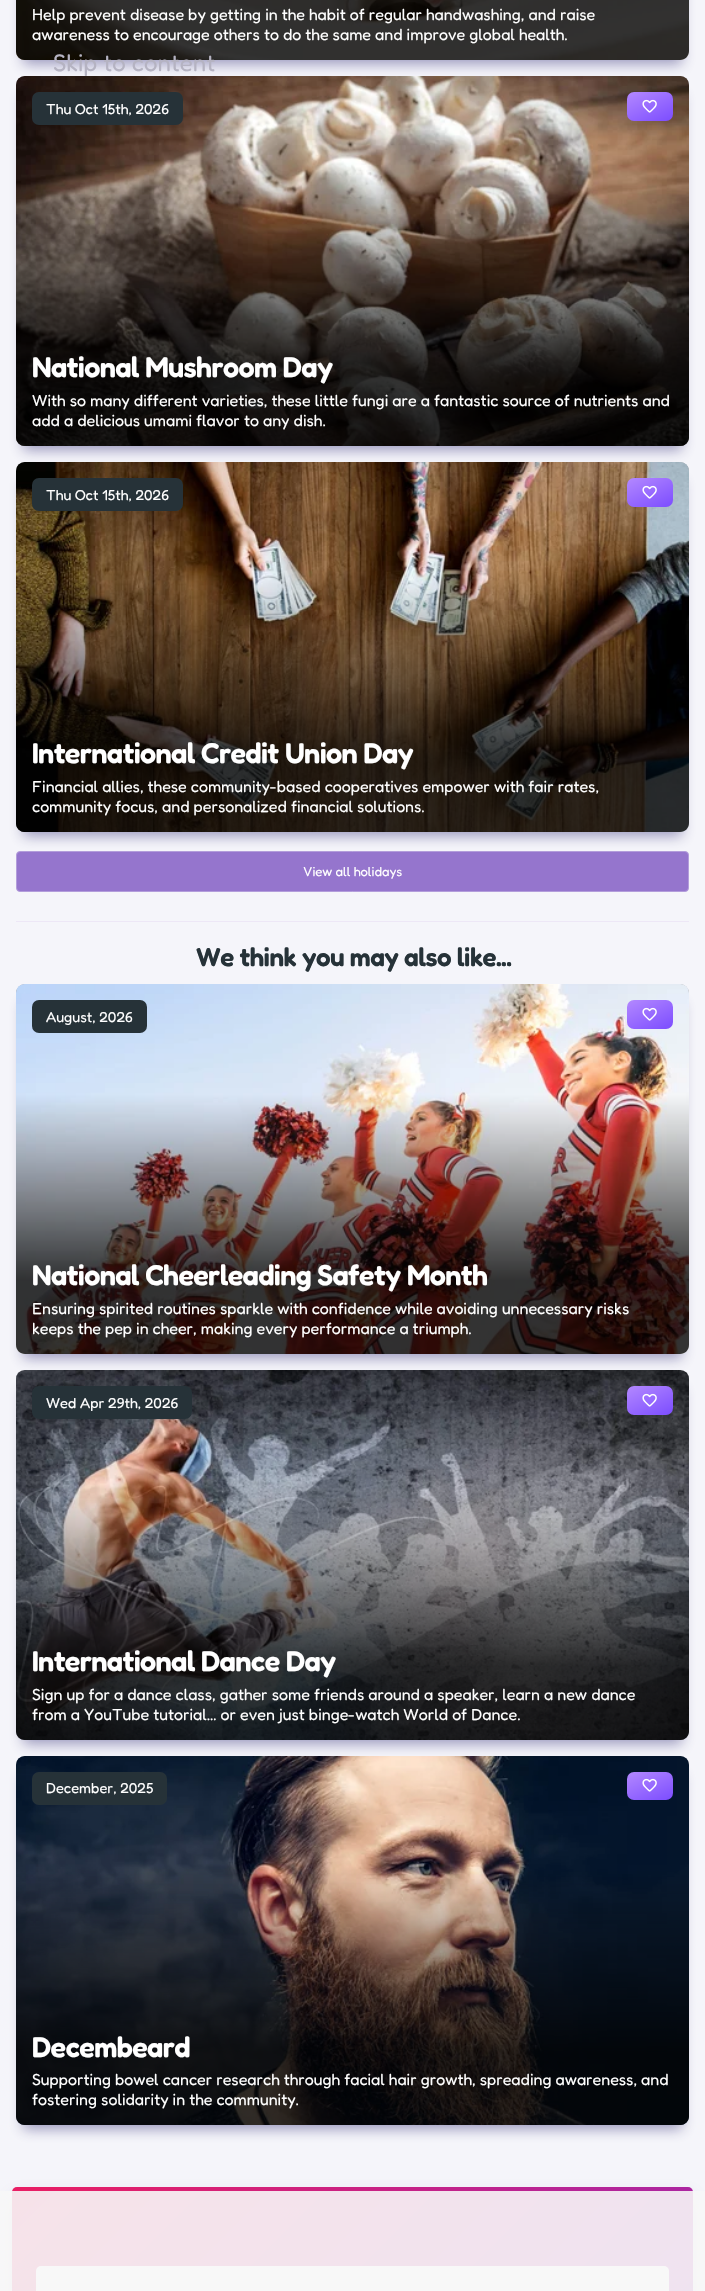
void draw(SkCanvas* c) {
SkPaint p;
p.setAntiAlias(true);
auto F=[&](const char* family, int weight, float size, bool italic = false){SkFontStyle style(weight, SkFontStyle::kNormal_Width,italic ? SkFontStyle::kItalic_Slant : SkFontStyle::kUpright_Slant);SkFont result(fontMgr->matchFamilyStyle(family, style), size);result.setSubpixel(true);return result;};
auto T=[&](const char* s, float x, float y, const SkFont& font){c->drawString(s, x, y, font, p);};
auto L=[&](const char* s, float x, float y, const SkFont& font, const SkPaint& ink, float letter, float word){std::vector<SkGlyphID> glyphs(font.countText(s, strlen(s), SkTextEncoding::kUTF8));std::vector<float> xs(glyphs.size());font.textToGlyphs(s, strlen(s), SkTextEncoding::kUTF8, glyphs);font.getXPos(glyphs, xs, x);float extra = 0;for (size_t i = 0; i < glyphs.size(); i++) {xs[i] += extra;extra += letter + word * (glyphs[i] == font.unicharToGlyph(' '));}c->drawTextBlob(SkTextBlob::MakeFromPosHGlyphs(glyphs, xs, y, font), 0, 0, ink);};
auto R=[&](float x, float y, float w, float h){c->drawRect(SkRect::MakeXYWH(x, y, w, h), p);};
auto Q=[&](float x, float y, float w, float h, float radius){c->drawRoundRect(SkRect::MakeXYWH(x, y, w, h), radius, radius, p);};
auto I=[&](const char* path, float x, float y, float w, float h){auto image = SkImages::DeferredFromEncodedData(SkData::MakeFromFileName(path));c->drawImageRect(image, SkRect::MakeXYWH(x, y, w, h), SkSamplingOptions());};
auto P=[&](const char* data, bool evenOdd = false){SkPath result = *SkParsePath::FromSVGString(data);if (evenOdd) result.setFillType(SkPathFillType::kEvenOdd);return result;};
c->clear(0xfff5f5fa);
p.setColor(0x803c377d);
p.setMaskFilter(SkMaskFilter::MakeBlur(kNormal_SkBlurStyle, 7));
c->drawRoundRect(SkRect::MakeXYWH(23,-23,659,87),1.5,1.5,p);
p.setMaskFilter(nullptr);
I("1.png",16,0,673,60);
{
const SkColor colors[] = {0xcc000000,0x00000000};
const float stops[] = {.2,.7};
const SkPoint ends[] = {{353,60}, {353,-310}};
p.setShader(SkGradientShader::MakeLinear(ends, colors, stops, 2, SkTileMode::kClamp));
p.setAlpha(255);
}
c->drawPath(P("M16-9h673v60c0 5-4 9-9 9h-655c-5 0-9-4-9-9z"),p);
auto f1 = F("Fredoka",400,16);
p.setShader(nullptr);
p.setColor(0xffffffff);
T("Help prevent disease by getting in the habit of regular handwashing, and raise",32,20,f1);
T("awareness to encourage others to do the same and improve global health.",32,40,f1);
p.setColor(0x803c377d);
p.setMaskFilter(SkMaskFilter::MakeBlur(kNormal_SkBlurStyle, 7));
c->drawRoundRect(SkRect::MakeXYWH(23,95,659,355),1.5,1.5,p);
p.setMaskFilter(nullptr);
p.setColor(0xffa1a1a1);
Q(16,76,673,370,9);
I("2.png",16,76,673,370);
{
const SkColor colors[] = {0xcc000000,0x00000000};
const float stops[] = {.2,.7};
const SkPoint ends[] = {{353,446}, {353,76}};
p.setShader(SkGradientShader::MakeLinear(ends, colors, stops, 2, SkTileMode::kClamp));
p.setAlpha(255);
}
c->drawPath(P("M16 76h673v361c0 5-4 9-9 9h-655c-5 0-9-4-9-9z"),p);
p.setShader(nullptr);
p.setColor(0xff263238);
Q(32,92,151,33,7);
auto f2 = F("Fredoka",400,14.5);
p.setColor(0xffffffff);
T("Thu Oct 15th, 2026",46,114,f2);
{
const SkColor colors[] = {0xffb388ff,0xff7c4dff};
const float stops[] = {0,1};
const SkPoint ends[] = {{640,86}, {660,127}};
p.setShader(SkGradientShader::MakeLinear(ends, colors, stops, 2, SkTileMode::kClamp));
p.setAlpha(255);
}
Q(627,92,46,29,7);
I("3.png",642,99,15,14);
auto f3 = F("Fredoka",600,28.75);
p.setShader(nullptr);
p.setColor(0xffffffff);
L("National Mushroom Day",32,377,f3,p,-.6,0);
T("With so many different varieties, these little fungi are a fantastic source of nutrients and",32,406,f1);
T("add a delicious umami flavor to any dish.",32,426,f1);
p.setColor(0xff9575cd);
c->drawRoundRect(SkRect::MakeXYWH(16.5,851.5,672,40),3.5,3.5,p);
p.setStroke(true);
p.setStrokeWidth(1);
p.setColor(0xffb39ddb);
c->drawRoundRect(SkRect::MakeXYWH(16.5,851.5,672,40),3.5,3.5,p);
p.setStroke(false);
p.setColor(0x803c377d);
p.setMaskFilter(SkMaskFilter::MakeBlur(kNormal_SkBlurStyle, 7));
c->drawRoundRect(SkRect::MakeXYWH(23,481,659,355),1.5,1.5,p);
p.setMaskFilter(nullptr);
p.setColor(0xffa1a1a1);
Q(16,462,673,370,9);
I("4.png",16,462,673,370);
{
const SkColor colors[] = {0xcc000000,0x00000000};
const float stops[] = {.2,.7};
const SkPoint ends[] = {{353,832}, {353,462}};
p.setShader(SkGradientShader::MakeLinear(ends, colors, stops, 2, SkTileMode::kClamp));
p.setAlpha(255);
}
c->drawPath(P("M16 462h673v361c0 5-4 9-9 9h-655c-5 0-9-4-9-9z"),p);
p.setShader(nullptr);
p.setColor(0xff263238);
Q(32,478,151,33,7);
p.setColor(0xffffffff);
T("Thu Oct 15th, 2026",46,500,f2);
{
const SkColor colors[] = {0xffb388ff,0xff7c4dff};
const float stops[] = {0,1};
const SkPoint ends[] = {{640,472}, {660,513}};
p.setShader(SkGradientShader::MakeLinear(ends, colors, stops, 2, SkTileMode::kClamp));
p.setAlpha(255);
}
Q(627,478,46,29,7);
I("3.png",642,485,15,14);
p.setShader(nullptr);
p.setColor(0xffffffff);
L("International Credit Union Day",32,763,f3,p,-.6,0);
T("Financial allies, these community-based cooperatives empower with fair rates,",32,792,f1);
T("community focus, and personalized financial solutions.",32,812,f1);
auto f4 = F("Fredoka",400,13);
T("View all holidays",303,876,f4);
p.setColor(0xffede7f6);
R(16,921,673,1);
auto f5 = F("Fredoka",600,26);
p.setColor(0xff263238);
L("We think you may also like...",196,966,f5,p,-.5,0);
p.setColor(0x803c377d);
p.setMaskFilter(SkMaskFilter::MakeBlur(kNormal_SkBlurStyle, 7));
c->drawRoundRect(SkRect::MakeXYWH(23,1003,659,355),1.5,1.5,p);
p.setMaskFilter(nullptr);
p.setColor(0xffa1a1a1);
Q(16,984,673,370,9);
I("5.png",16,984,673,370);
{
const SkColor colors[] = {0xcc000000,0x00000000};
const float stops[] = {.2,.7};
const SkPoint ends[] = {{353,1354}, {353,984}};
p.setShader(SkGradientShader::MakeLinear(ends, colors, stops, 2, SkTileMode::kClamp));
p.setAlpha(255);
}
c->drawPath(P("M16 984h673v361c0 5-4 9-9 9h-655c-5 0-9-4-9-9z"),p);
p.setShader(nullptr);
p.setColor(0xff263238);
Q(32,1000,115,33,7);
p.setColor(0xffffffff);
T("August, 2026",46,1022,f2);
{
const SkColor colors[] = {0xffb388ff,0xff7c4dff};
const float stops[] = {0,1};
const SkPoint ends[] = {{640,994}, {660,1035}};
p.setShader(SkGradientShader::MakeLinear(ends, colors, stops, 2, SkTileMode::kClamp));
p.setAlpha(255);
}
Q(627,1000,46,29,7);
I("3.png",642,1007,15,14);
p.setShader(nullptr);
p.setColor(0xffffffff);
L("National Cheerleading Safety Month",32,1285,f3,p,-.6,0);
T("Ensuring spirited routines sparkle with confidence while avoiding unnecessary risks",32,1314,f1);
T("keeps the pep in cheer, making every performance a triumph.",32,1334,f1);
p.setColor(0x803c377d);
p.setMaskFilter(SkMaskFilter::MakeBlur(kNormal_SkBlurStyle, 7));
c->drawRoundRect(SkRect::MakeXYWH(23,1389,659,355),1.5,1.5,p);
p.setMaskFilter(nullptr);
I("6.png",16,1370,673,370);
{
const SkColor colors[] = {0xcc000000,0x00000000};
const float stops[] = {.2,.7};
const SkPoint ends[] = {{353,1740}, {353,1370}};
p.setShader(SkGradientShader::MakeLinear(ends, colors, stops, 2, SkTileMode::kClamp));
p.setAlpha(255);
}
c->drawPath(P("M16 1370h673v361c0 5-4 9-9 9h-655c-5 0-9-4-9-9z"),p);
p.setShader(nullptr);
p.setColor(0xff263238);
Q(32,1386,160,33,7);
p.setColor(0xffffffff);
T("Wed Apr 29th, 2026",46,1408,f2);
{
const SkColor colors[] = {0xffb388ff,0xff7c4dff};
const float stops[] = {0,1};
const SkPoint ends[] = {{640,1380}, {660,1421}};
p.setShader(SkGradientShader::MakeLinear(ends, colors, stops, 2, SkTileMode::kClamp));
p.setAlpha(255);
}
Q(627,1386,46,29,7);
I("3.png",642,1393,15,14);
p.setShader(nullptr);
p.setColor(0xffffffff);
L("International Dance Day",32,1671,f3,p,-.6,0);
T("Sign up for a dance class, gather some friends around a speaker, learn a new dance",32,1700,f1);
T("from a YouTube tutorial… or even just binge-watch World of Dance.",32,1720,f1);
p.setColor(0x803c377d);
p.setMaskFilter(SkMaskFilter::MakeBlur(kNormal_SkBlurStyle, 7));
c->drawRoundRect(SkRect::MakeXYWH(23,1775,659,354),1.5,1.5,p);
p.setMaskFilter(nullptr);
p.setColor(0xffa1a1a1);
Q(16,1756,673,369,9);
I("7.png",16,1756,673,369);
{
const SkColor colors[] = {0xcc000000,0x00000000};
const float stops[] = {.2,.7};
const SkPoint ends[] = {{353,2125}, {353,1756}};
p.setShader(SkGradientShader::MakeLinear(ends, colors, stops, 2, SkTileMode::kClamp));
p.setAlpha(255);
}
c->drawPath(P("M16 1756h673v360c0 5-4 9-9 9h-655c-5 0-9-4-9-9z"),p);
p.setShader(nullptr);
p.setColor(0xff263238);
Q(32,1772,135,33,7);
p.setColor(0xffffffff);
T("December, 2025",46,1793,f2);
{
const SkColor colors[] = {0xffb388ff,0xff7c4dff};
const float stops[] = {0,1};
const SkPoint ends[] = {{641,1766}, {659,1806}};
p.setShader(SkGradientShader::MakeLinear(ends, colors, stops, 2, SkTileMode::kClamp));
p.setAlpha(255);
}
Q(627,1772,46,28,7);
I("8.png",642,1778,15,14);
p.setShader(nullptr);
p.setColor(0xffffffff);
L("Decembeard",32,2057,f3,p,-.6,0);
T("Supporting bowel cancer research through facial hair growth, spreading awareness, and",32,2085,f1);
T("fostering solidarity in the community.",32,2105,f1);
p.setColor(0x263c377d);
p.setMaskFilter(SkMaskFilter::MakeBlur(kNormal_SkBlurStyle, 10));
c->drawRoundRect(SkRect::MakeXYWH(12,2197,681,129),5,5,p);
p.setMaskFilter(nullptr);
{
const SkColor colors[] = {0xffe91e63,0xff9c27b0};
const float stops[] = {0,1};
const SkPoint ends[] = {{138,2061}, {567,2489}};
p.setShader(SkGradientShader::MakeLinear(ends, colors, stops, 2, SkTileMode::kClamp));
p.setAlpha(255);
}
Q(12,2187,681,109,5);
p.setShader(nullptr);
p.setColor(0xffffffff);
Q(36,2266,633,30,5);
auto f6 = F("Fredoka",400,24);
p.setColor(0xffb5b3c2);
T("Skip to content",53,71,f6);
p.setColor(0xe6f7f7f7);
R(0,2191,705,100);
}
